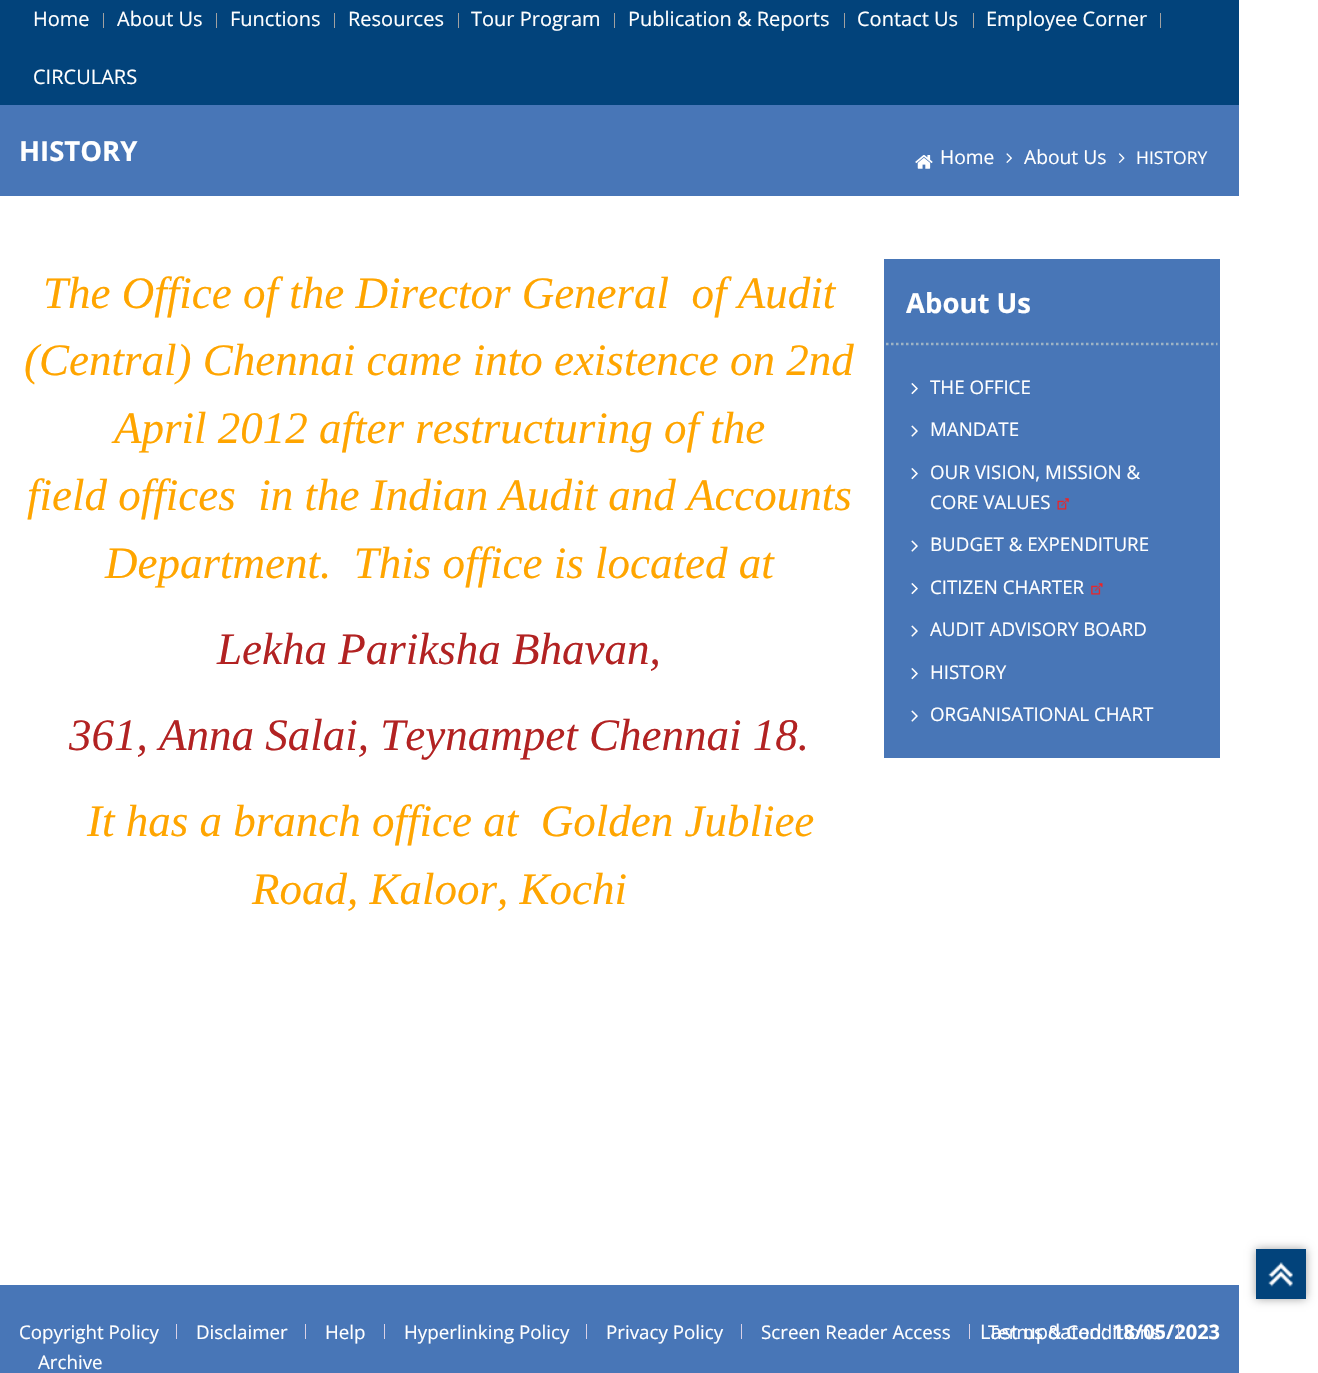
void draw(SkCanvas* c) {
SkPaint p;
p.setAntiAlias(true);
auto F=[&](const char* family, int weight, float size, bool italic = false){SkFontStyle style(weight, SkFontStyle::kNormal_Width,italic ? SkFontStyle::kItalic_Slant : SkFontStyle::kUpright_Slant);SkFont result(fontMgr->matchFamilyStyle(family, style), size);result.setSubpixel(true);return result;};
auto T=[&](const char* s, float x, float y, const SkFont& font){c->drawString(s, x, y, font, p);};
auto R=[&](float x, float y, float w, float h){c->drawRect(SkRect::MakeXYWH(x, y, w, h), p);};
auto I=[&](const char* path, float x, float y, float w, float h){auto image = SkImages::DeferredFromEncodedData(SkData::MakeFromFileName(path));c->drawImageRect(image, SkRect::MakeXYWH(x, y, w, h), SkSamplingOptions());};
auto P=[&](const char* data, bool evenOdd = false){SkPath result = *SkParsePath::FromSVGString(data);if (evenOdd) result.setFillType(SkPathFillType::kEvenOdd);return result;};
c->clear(0xffffffff);
p.setColor(0xff02437b);
R(0,0,1239,105);
auto f1 = F("Open Sans",400,20);
p.setColor(0xffffffff);
T("Home",33,26,f1);
p.setColor(0xffa1a1a1);
R(103,13,1,15);
p.setColor(0xffffffff);
T("About Us",117,26,f1);
p.setColor(0xffa1a1a1);
R(216,13,1,15);
p.setColor(0xffffffff);
T("Functions",230,26,f1);
p.setColor(0xffa1a1a1);
R(334,13,1,15);
p.setColor(0xffffffff);
T("Resources",348,26,f1);
p.setColor(0xffa1a1a1);
R(458,13,1,15);
p.setColor(0xffffffff);
T("Tour Program",471,26,f1);
p.setColor(0xffa1a1a1);
R(614,13,1,15);
p.setColor(0xffffffff);
T("Publication & Reports",628,26,f1);
p.setColor(0xffa1a1a1);
R(844,13,1,15);
p.setColor(0xffffffff);
T("Contact Us",857,26,f1);
p.setColor(0xffa1a1a1);
R(973,13,1,15);
p.setColor(0xffffffff);
T("Employee Corner",986,26,f1);
p.setColor(0xffa1a1a1);
R(1160,13,1,15);
p.setColor(0xffffffff);
T("CIRCULARS",33,84,f1);
p.setColor(0xff4876b7);
R(0,105,1239,91);
auto f2 = F("Open Sans",700,27.5);
p.setColor(0xffffffff);
T("HISTORY",19,161,f2);
I("1.png",915,155,18,14);
auto f3 = F("Open Sans",400,19.25);
T("Home",940,164,f3);
I("2.png",1006,153,6,10);
T("About Us",1024,164,f3);
I("3.png",1118,153,7,10);
auto f4 = F("Open Sans",400,17.5);
T("HISTORY",1136,164,f4);
auto f5 = F("Liberation Serif",400,45,true);
p.setColor(0xffffa500);
T("The Office of the Director General  of Audit",43,308,f5);
T("(Central) Chennai came into existence on 2nd",24,375,f5);
T("April 2012 after restructuring of the",114,443,f5);
T("field offices  in the Indian Audit and Accounts",27,510,f5);
T("Department.  This office is located at",105,578,f5);
p.setColor(0xffb22222);
T("Lekha Pariksha Bhavan,",217,664,f5);
T("361, Anna Salai, Teynampet Chennai 18.",69,750,f5);
p.setColor(0xffffa500);
T("It has a branch office at  Golden Jubliee",87,836,f5);
T("Road, Kaloor, Kochi",252,904,f5);
p.setColor(0xff4876b7);
R(884,259,336,499);
p.setStroke(true);
p.setStrokeWidth(2.5);
p.setColor(0xff9db3c5);
p.setPathEffect(SkDashPathEffect::Make({{2.5f,2.5f}}, 0));
c->drawPath(P("M886 344h331.5"),p);
p.setPathEffect(nullptr);
p.setStroke(false);
p.setColor(0xffffffff);
T("About Us",906,313,f2);
I("4.png",911,383,7,12);
auto f6 = F("Open Sans",400,18.75);
T("THE OFFICE",930,394,f6);
I("5.png",911,425,7,12);
T("MANDATE",930,436,f6);
I("4.png",911,468,7,12);
T("OUR VISION, MISSION &",930,479,f6);
T("CORE VALUES",930,509,f6);
I("6.png",1057,498,12,12);
I("5.png",911,540,7,12);
T("BUDGET & EXPENDITURE",930,551,f6);
I("4.png",911,583,7,12);
T("CITIZEN CHARTER",930,594,f6);
I("7.png",1091,583,12,12);
I("5.png",911,625,7,12);
T("AUDIT ADVISORY BOARD",930,636,f6);
I("4.png",911,668,7,12);
T("HISTORY",930,679,f6);
I("5.png",911,710,7,12);
T("ORGANISATIONAL CHART",930,721,f6);
p.setColor(0xff4876b7);
R(0,1285,1239,88);
p.setColor(0xffffffff);
T("Last updated:",980,1339,f1);
auto f7 = F("Open Sans",700,20);
T("18/05/2023",1112,1339,f7);
T("Copyright Policy",19,1339,f6);
p.setColor(0xffdad1e6);
R(176,1324,1,15);
p.setColor(0xffffffff);
T("Disclaimer",196,1339,f6);
p.setColor(0xffdad1e6);
R(305,1324,1,15);
p.setColor(0xffffffff);
T("Help",325,1339,f6);
p.setColor(0xffdad1e6);
R(384,1324,1,15);
p.setColor(0xffffffff);
T("Hyperlinking Policy",404,1339,f6);
p.setColor(0xffdad1e6);
R(586,1324,1,15);
p.setColor(0xffffffff);
T("Privacy Policy",606,1339,f6);
p.setColor(0xffdad1e6);
R(741,1324,1,15);
p.setColor(0xffffffff);
T("Screen Reader Access",761,1339,f6);
p.setColor(0xffdad1e6);
R(969,1324,1,15);
p.setColor(0xffffffff);
T("Terms & Conditions",988,1339,f6);
p.setColor(0xffdad1e6);
R(1178,1324,1,15);
p.setColor(0xffffffff);
T("Archive",38,1369,f6);
p.setColor(0x5e000000);
p.setMaskFilter(SkMaskFilter::MakeBlur(kNormal_SkBlurStyle, 4.5));
c->drawRect(SkRect::MakeXYWH(1256,1249,50,50),p);
p.setMaskFilter(nullptr);
p.setColor(0xff02437b);
R(1256,1249,50,50);
I("8.png",1268,1262,25,25);
}
